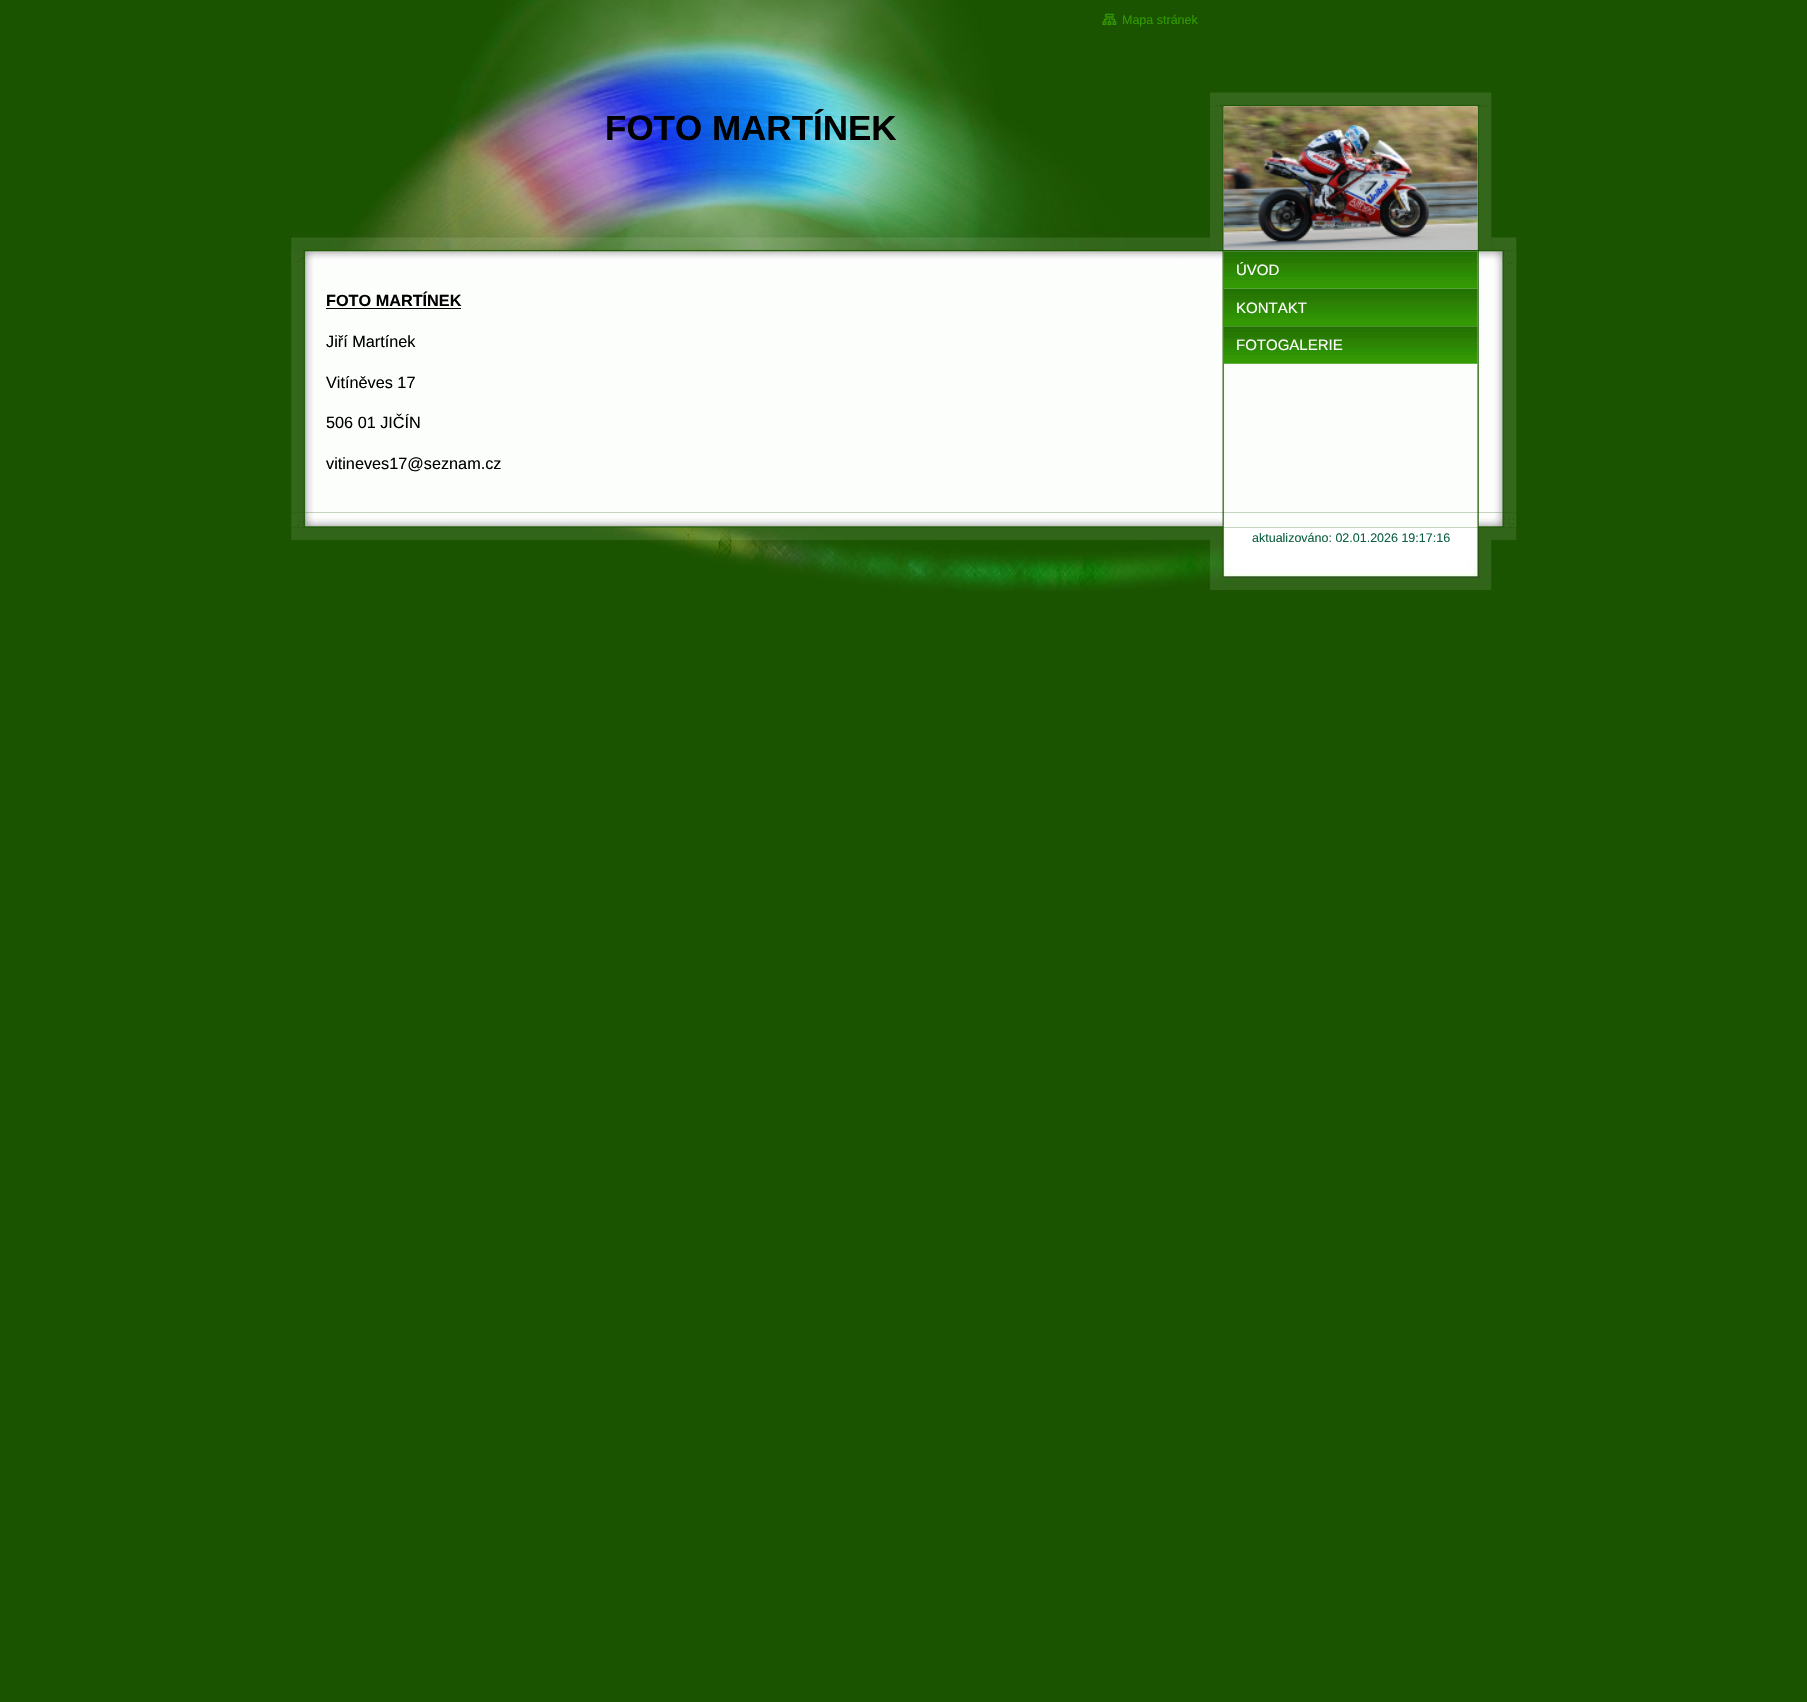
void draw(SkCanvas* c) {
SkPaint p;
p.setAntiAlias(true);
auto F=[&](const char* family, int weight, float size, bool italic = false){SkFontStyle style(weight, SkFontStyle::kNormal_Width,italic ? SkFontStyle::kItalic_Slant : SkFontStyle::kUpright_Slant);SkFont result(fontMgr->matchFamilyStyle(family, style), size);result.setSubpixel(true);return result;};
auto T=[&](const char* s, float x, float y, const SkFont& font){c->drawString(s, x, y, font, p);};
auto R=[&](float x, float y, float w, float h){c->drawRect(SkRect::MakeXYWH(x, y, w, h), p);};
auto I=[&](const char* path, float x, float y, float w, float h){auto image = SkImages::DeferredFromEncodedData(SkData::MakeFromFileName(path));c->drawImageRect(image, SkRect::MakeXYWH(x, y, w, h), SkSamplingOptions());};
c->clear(0xff1b5400);
I("8.png",291,251,1226,262);
I("9.png",291,251,1226,14);
I("1.png",291,0,919,252);
I("2.png",1102,13,15,12);
auto f1 = F("Liberation Sans",400,12.5);
p.setColor(0xff329a00);
T("Mapa stránek",1122,24,f1);
auto f2 = F("Liberation Sans",700,35);
p.setColor(0xff000000);
T("FOTO MARTÍNEK",605,140,f2);
I("7.png",1491,237,26,15);
I("10.png",1223,251,255,38);
I("3.png",1210,250,282,2);
I("4.png",1210,92,282,15);
I("5.png",1210,106,282,144);
I("6.png",1223,106,255,144);
auto f3 = F("Liberation Sans",700,16.25);
T("FOTO MARTÍNEK",326,306,f3);
R(326,308,135,1);
auto f4 = F("Liberation Sans",400,16.25);
T("Jiří Martínek",326,347,f4);
T("Vitíněves 17",326,388,f4);
T("506 01 JIČÍN",326,428,f4);
T("vitineves17@seznam.cz",326,469,f4);
auto f5 = F("Liberation Sans",400,15);
p.setColor(0xffffffff);
T("ÚVOD",1236,275,f5);
I("11.png",1223,288,255,39);
T("KONTAKT",1236,313,f5);
I("12.png",1223,326,255,38);
T("FOTOGALERIE",1236,350,f5);
I("13.png",291,512,1226,16);
I("14.png",291,527,1226,64);
p.setColor(0xff0d6141);
T("aktualizováno: 02.01.2026 19:17:16",1252,542,f1);
}
